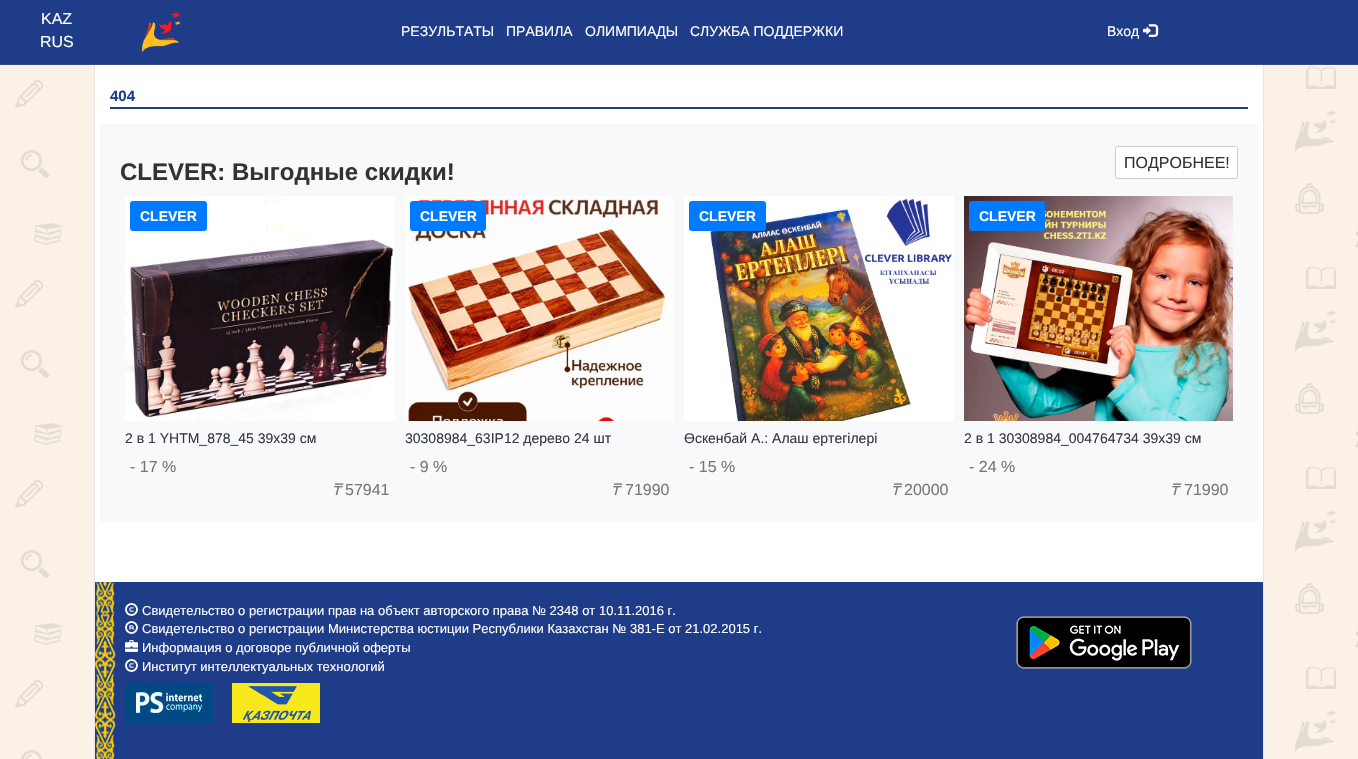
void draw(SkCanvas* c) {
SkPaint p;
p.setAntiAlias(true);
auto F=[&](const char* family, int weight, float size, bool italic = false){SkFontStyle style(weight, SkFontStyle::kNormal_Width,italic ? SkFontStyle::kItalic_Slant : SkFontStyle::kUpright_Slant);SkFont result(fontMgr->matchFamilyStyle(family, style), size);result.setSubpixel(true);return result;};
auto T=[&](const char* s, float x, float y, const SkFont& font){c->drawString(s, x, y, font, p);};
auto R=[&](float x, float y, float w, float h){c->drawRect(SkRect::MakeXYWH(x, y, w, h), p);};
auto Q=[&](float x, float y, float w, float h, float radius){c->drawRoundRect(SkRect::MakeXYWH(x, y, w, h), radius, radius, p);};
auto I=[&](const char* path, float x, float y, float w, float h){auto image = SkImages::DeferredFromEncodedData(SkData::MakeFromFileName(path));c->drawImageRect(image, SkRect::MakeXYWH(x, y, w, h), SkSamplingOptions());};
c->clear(0xffffffff);
I("1.png",0,65,1358,694);
p.setColor(0xff1f3c88);
R(0,0,1358,64);
p.setColor(0xff344d8d);
R(0,64,1358,1);
auto f1 = F("Liberation Sans",400,16);
p.setColor(0xffffffff);
T("KAZ",41,24,f1);
T("RUS",40,47,f1);
I("2.png",142,12,39,40);
auto f2 = F("Liberation Sans",400,14);
T("РЕЗУЛЬТАТЫ",401,36,f2);
T("ПРАВИЛА",506,36,f2);
T("ОЛИМПИАДЫ",585,36,f2);
T("СЛУЖБА ПОДДЕРЖКИ",690,36,f2);
T("Вход",1107,36,f2);
I("3.png",1143,24,16,13);
R(95,65,1168,517);
p.setColor(0xffe5e5e5);
R(1263,65,1,694);
R(94,65,1,694);
p.setColor(0xff1f3c88);
R(110,107,1138,2);
auto f3 = F("Liberation Sans",700,15);
T("404",110,101,f3);
p.setColor(0xfff8f9fa);
R(100,124,1158,398);
auto f4 = F("Liberation Sans",700,24);
p.setColor(0xff333333);
T("CLEVER: Выгодные скидки!",120,180,f4);
p.setColor(0xffffffff);
c->drawRoundRect(SkRect::MakeXYWH(1115.5,146.5,122,32),2,2,p);
p.setStroke(true);
p.setStrokeWidth(1);
p.setColor(0xffcccccc);
c->drawRoundRect(SkRect::MakeXYWH(1115.5,146.5,122,32),2,2,p);
p.setStroke(false);
p.setColor(0xff333333);
T("ПОДРОБНЕЕ!",1124,168,f1);
I("4.png",125,196,270,225);
p.setColor(0xff007bff);
Q(130,201,77,30,3);
auto f5 = F("Liberation Sans",700,14);
p.setColor(0xffffffff);
T("CLEVER",140,221,f5);
p.setColor(0xff343a40);
T("2 в 1 YHTM_878_45 39x39 см",125,443,f2);
p.setColor(0xff777777);
T("- 17 %",130,472,f1);
auto f6 = F("Noto Sans",400,16,true);
T("₸",332,495,f6);
T("57941",345,495,f1);
I("5.png",405,196,269,225);
p.setColor(0xff007bff);
Q(410,201,76,30,3);
p.setColor(0xffffffff);
T("CLEVER",420,221,f5);
p.setColor(0xff343a40);
T("30308984_63IP12 дерево 24 шт",405,443,f2);
p.setColor(0xff777777);
T("- 9 %",410,472,f1);
T("₸",611,495,f6);
T("71990",625,495,f1);
I("6.png",684,196,270,225);
p.setColor(0xff007bff);
Q(689,201,77,30,3);
p.setColor(0xffffffff);
T("CLEVER",699,221,f5);
p.setColor(0xff343a40);
T("Өскенбай А.: Алаш ертегілері",684,443,f2);
p.setColor(0xff777777);
T("- 15 %",689,472,f1);
T("₸",891,495,f6);
T("20000",904,495,f1);
I("7.png",964,196,269,225);
p.setColor(0xff007bff);
Q(969,201,76,30,3);
p.setColor(0xffffffff);
T("CLEVER",979,221,f5);
p.setColor(0xff343a40);
T("2 в 1 30308984_004764734 39x39 см",964,443,f2);
p.setColor(0xff777777);
T("- 24 %",969,472,f1);
T("₸",1170,495,f6);
T("71990",1184,495,f1);
p.setColor(0xff1f3c88);
R(95,582,1168,177);
I("8.png",95,582,21,177);
I("9.png",125,603,13,13);
auto f7 = F("Liberation Sans",400,13);
p.setColor(0xffffffff);
T("Свидетельство о регистрации прав на объект авторского права № 2348 от 10.11.2016 г.",142,615,f7);
I("10.png",125,621,13,13);
T("Свидетельство о регистрации Министерства юстиции Республики Казахстан № 381-Е от 21.02.2015 г.",142,633,f7);
I("11.png",125,640,13,12);
T("Информация о договоре публичной оферты",142,652,f7);
I("9.png",125,659,13,13);
T("Институт интеллектуальных технологий",142,671,f7);
I("12.png",1016,616,176,53);
I("13.png",125,683,88,40);
I("14.png",232,683,88,40);
}
